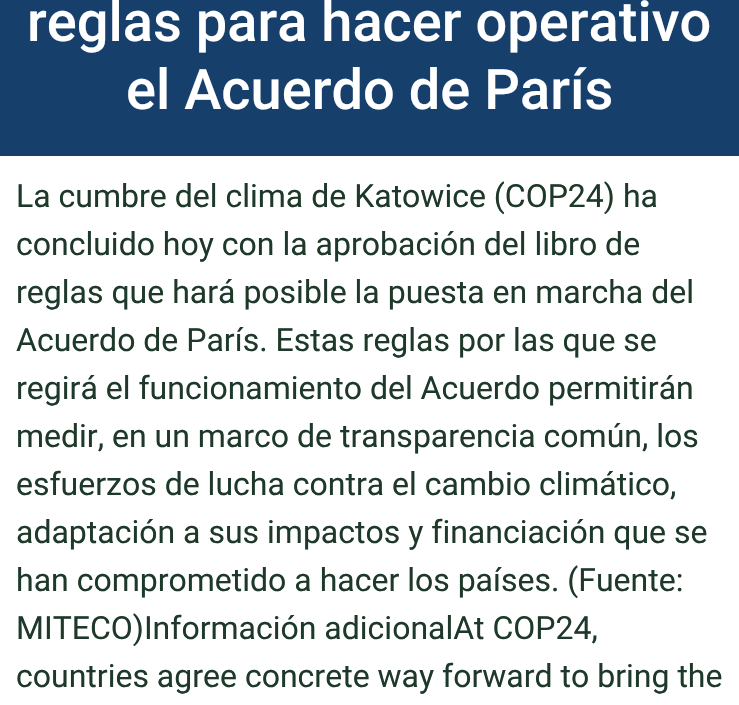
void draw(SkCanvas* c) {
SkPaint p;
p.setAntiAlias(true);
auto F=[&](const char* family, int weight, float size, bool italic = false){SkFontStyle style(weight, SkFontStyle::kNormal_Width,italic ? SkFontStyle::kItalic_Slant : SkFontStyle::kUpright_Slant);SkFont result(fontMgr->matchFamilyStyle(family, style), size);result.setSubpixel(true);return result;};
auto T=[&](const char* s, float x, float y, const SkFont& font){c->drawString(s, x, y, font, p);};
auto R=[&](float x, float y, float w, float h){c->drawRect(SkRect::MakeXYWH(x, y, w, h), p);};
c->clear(0xff163f6b);
auto f1 = F("Roboto",500,56);
p.setColor(0xffffffff);
T("reglas para hacer operativo",27,41,f1);
T("el Acuerdo de París",126,109,f1);
R(0,156,739,549);
auto f2 = F("Roboto",400,32);
p.setColor(0xff1e392a);
T("La cumbre del clima de Katowice (COP24) ha",16,207,f2);
T("concluido hoy con la aprobación del libro de",16,255,f2);
T("reglas que hará posible la puesta en marcha del",16,303,f2);
T("Acuerdo de París. Estas reglas por las que se",16,351,f2);
T("regirá el funcionamiento del Acuerdo permitirán",16,399,f2);
T("medir, en un marco de transparencia común, los",16,447,f2);
T("esfuerzos de lucha contra el cambio climático,",16,495,f2);
T("adaptación a sus impactos y financiación que se",16,543,f2);
T("han comprometido a hacer los países. (Fuente:",16,591,f2);
T("MITECO)Información adicionalAt COP24,",16,639,f2);
T("countries agree concrete way forward to bring the",16,687,f2);
}
